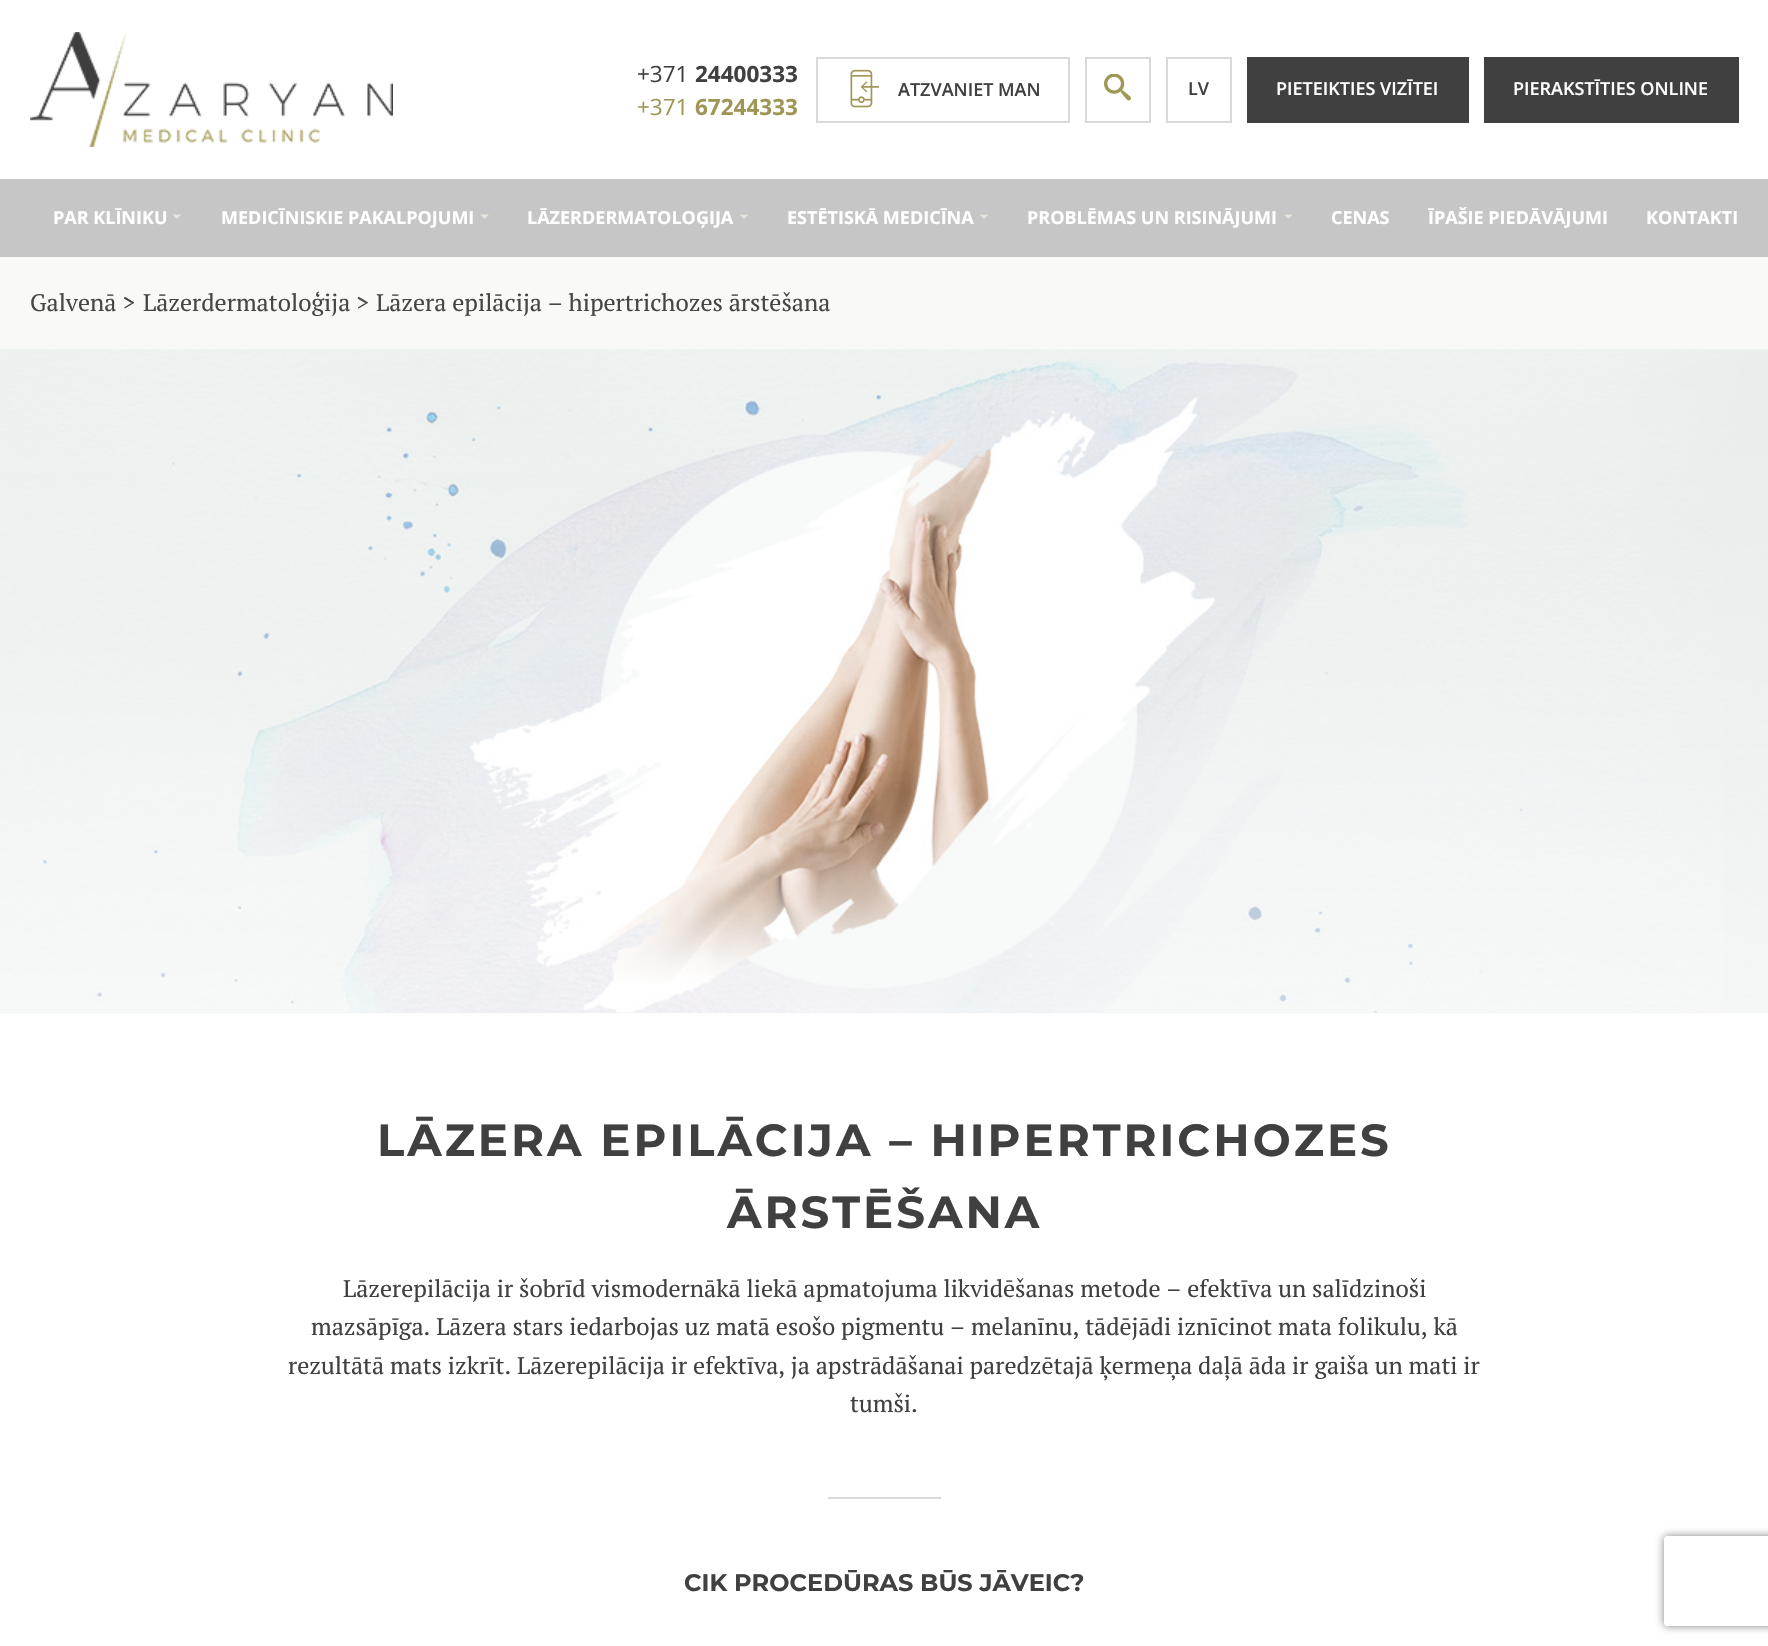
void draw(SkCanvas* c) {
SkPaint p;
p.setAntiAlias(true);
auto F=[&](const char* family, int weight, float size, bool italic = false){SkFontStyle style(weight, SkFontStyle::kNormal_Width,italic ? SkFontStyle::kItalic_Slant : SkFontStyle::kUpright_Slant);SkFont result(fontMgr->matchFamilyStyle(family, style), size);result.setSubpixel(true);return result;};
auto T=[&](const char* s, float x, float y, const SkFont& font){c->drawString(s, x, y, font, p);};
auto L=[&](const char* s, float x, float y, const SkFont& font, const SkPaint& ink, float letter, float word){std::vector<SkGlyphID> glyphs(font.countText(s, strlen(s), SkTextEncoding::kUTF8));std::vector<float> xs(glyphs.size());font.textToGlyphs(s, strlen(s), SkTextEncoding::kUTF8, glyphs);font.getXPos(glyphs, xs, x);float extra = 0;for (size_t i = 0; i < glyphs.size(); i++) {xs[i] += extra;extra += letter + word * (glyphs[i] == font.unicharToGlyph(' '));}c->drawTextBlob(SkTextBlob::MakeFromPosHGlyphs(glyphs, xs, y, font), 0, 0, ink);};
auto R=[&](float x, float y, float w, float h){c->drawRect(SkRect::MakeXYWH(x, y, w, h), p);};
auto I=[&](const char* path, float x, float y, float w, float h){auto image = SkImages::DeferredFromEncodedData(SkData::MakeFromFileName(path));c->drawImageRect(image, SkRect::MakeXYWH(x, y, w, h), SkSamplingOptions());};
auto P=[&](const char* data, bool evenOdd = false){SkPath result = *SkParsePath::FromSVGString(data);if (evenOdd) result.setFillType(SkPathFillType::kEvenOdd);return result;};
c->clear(0xffffffff);
I("1.png",30,32,363,115);
auto f1 = F("Open Sans",400,22.5);
p.setColor(0xff404040);
T("+371",637,82,f1);
auto f2 = F("Open Sans",700,22.5);
T("24400333",695,82,f2);
p.setColor(0xff9e9655);
T("+371",637,115,f1);
T("67244333",695,115,f2);
p.setStroke(true);
p.setStrokeWidth(2);
p.setColor(0xffd9d9d9);
c->drawRect(SkRect::MakeXYWH(817,58,252,64),p);
I("2.png",850,69,29,39);
auto f3 = F("Open Sans",600,18);
p.setStroke(false);
p.setColor(0xff404040);
T("ATZVANIET MAN",898,96,f3);
p.setStroke(true);
p.setColor(0xffd9d9d9);
c->drawRect(SkRect::MakeXYWH(1086,58,64,64),p);
I("3.png",1104,74,27,27);
c->drawRect(SkRect::MakeXYWH(1167,58,64,64),p);
p.setStroke(false);
p.setColor(0xff404040);
T("LV",1188,95,f3);
R(1247,57,222,66);
p.setColor(0xffffffff);
T("PIETEIKTIES VIZĪTEI",1276,95,f3);
p.setColor(0xff404040);
R(1484,57,255,66);
p.setColor(0xffffffff);
T("PIERAKSTĪTIES ONLINE",1513,95,f3);
p.setColor(0xffc6c6c6);
R(0,179,1768,78);
auto f4 = F("Open Sans",700,18);
p.setColor(0xffffffff);
T("PAR KLĪNIKU",53,224,f4);
p.setColor(0xffe9e3db);
c->drawPath(P("M172.5 214.5h9l-4.5 4.5z"),p);
p.setColor(0xffffffff);
T("MEDICĪNISKIE PAKALPOJUMI",221,224,f4);
p.setColor(0xffe9e3db);
c->drawPath(P("M480 214.5h9l-4.5 4.5z"),p);
p.setColor(0xffffffff);
T("LĀZERDERMATOLOĢIJA",527,224,f4);
p.setColor(0xffe9e3db);
c->drawPath(P("M739.5 214.5h9l-4.5 4.5z"),p);
p.setColor(0xffffffff);
T("ESTĒTISKĀ MEDICĪNA",787,224,f4);
p.setColor(0xffe9e3db);
c->drawPath(P("M979.5 214.5h9l-4.5 4.5z"),p);
p.setColor(0xffffffff);
T("PROBLĒMAS UN RISINĀJUMI",1027,224,f4);
p.setColor(0xffe9e3db);
c->drawPath(P("M1284 214.5h9l-4.5 4.5z"),p);
p.setColor(0xffffffff);
T("CENAS",1331,224,f4);
T("ĪPAŠIE PIEDĀVĀJUMI",1428,224,f4);
T("KONTAKTI",1646,224,f4);
p.setColor(0xfff9f9f7);
R(0,257,1768,93);
auto f5 = F("PT Serif",400,24);
p.setColor(0xff464646);
T("Galvenā >",30,311,f5);
T("Lāzerdermatoloģija >",143,311,f5);
T("Lāzera epilācija – hipertrichozes ārstēšana",376,311,f5);
p.setColor(0xffe9eeec);
R(0,1012,1768,1);
I("4.png",0,349,1768,664);
auto f6 = F("Montserrat",700,45);
p.setColor(0xff404040);
L("LĀZERA EPILĀCIJA – HIPERTRICHOZES",377,1156,f6,p,3,0);
L("ĀRSTĒŠANA",727,1228,f6,p,3,0);
T("Lāzerepilācija ir šobrīd vismodernākā liekā apmatojuma likvidēšanas metode – efektīva un salīdzinoši",343,1297,f5);
T("mazsāpīga. Lāzera stars iedarbojas uz matā esošo pigmentu – melanīnu, tādējādi iznīcinot mata folikulu, kā",311,1335,f5);
T("rezultātā mats izkrīt. Lāzerepilācija ir efektīva, ja apstrādāšanai paredzētajā ķermeņa daļā āda ir gaiša un mati ir",288,1374,f5);
T("tumši.",850,1412,f5);
p.setColor(0xffd9d9d9);
R(828,1497,113,2);
auto f7 = F("Montserrat",700,24);
p.setColor(0xff404040);
T("CIK PROCEDŪRAS BŪS JĀVEIC?",684,1591,f7);
c->save();
c->clipPath(P("M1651 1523h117v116h-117zm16 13h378c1.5 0 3 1.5 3 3v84c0 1.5-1.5 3-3 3h-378c-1.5 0-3-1.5-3-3v-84c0-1.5 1.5-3 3-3z",true),true);
p.setColor(0xff808080);
p.setMaskFilter(SkMaskFilter::MakeBlur(kNormal_SkBlurStyle, 4));
c->drawRoundRect(SkRect::MakeXYWH(1664,1536,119,90),3,3,p);
p.setMaskFilter(nullptr);
c->restore();
}
